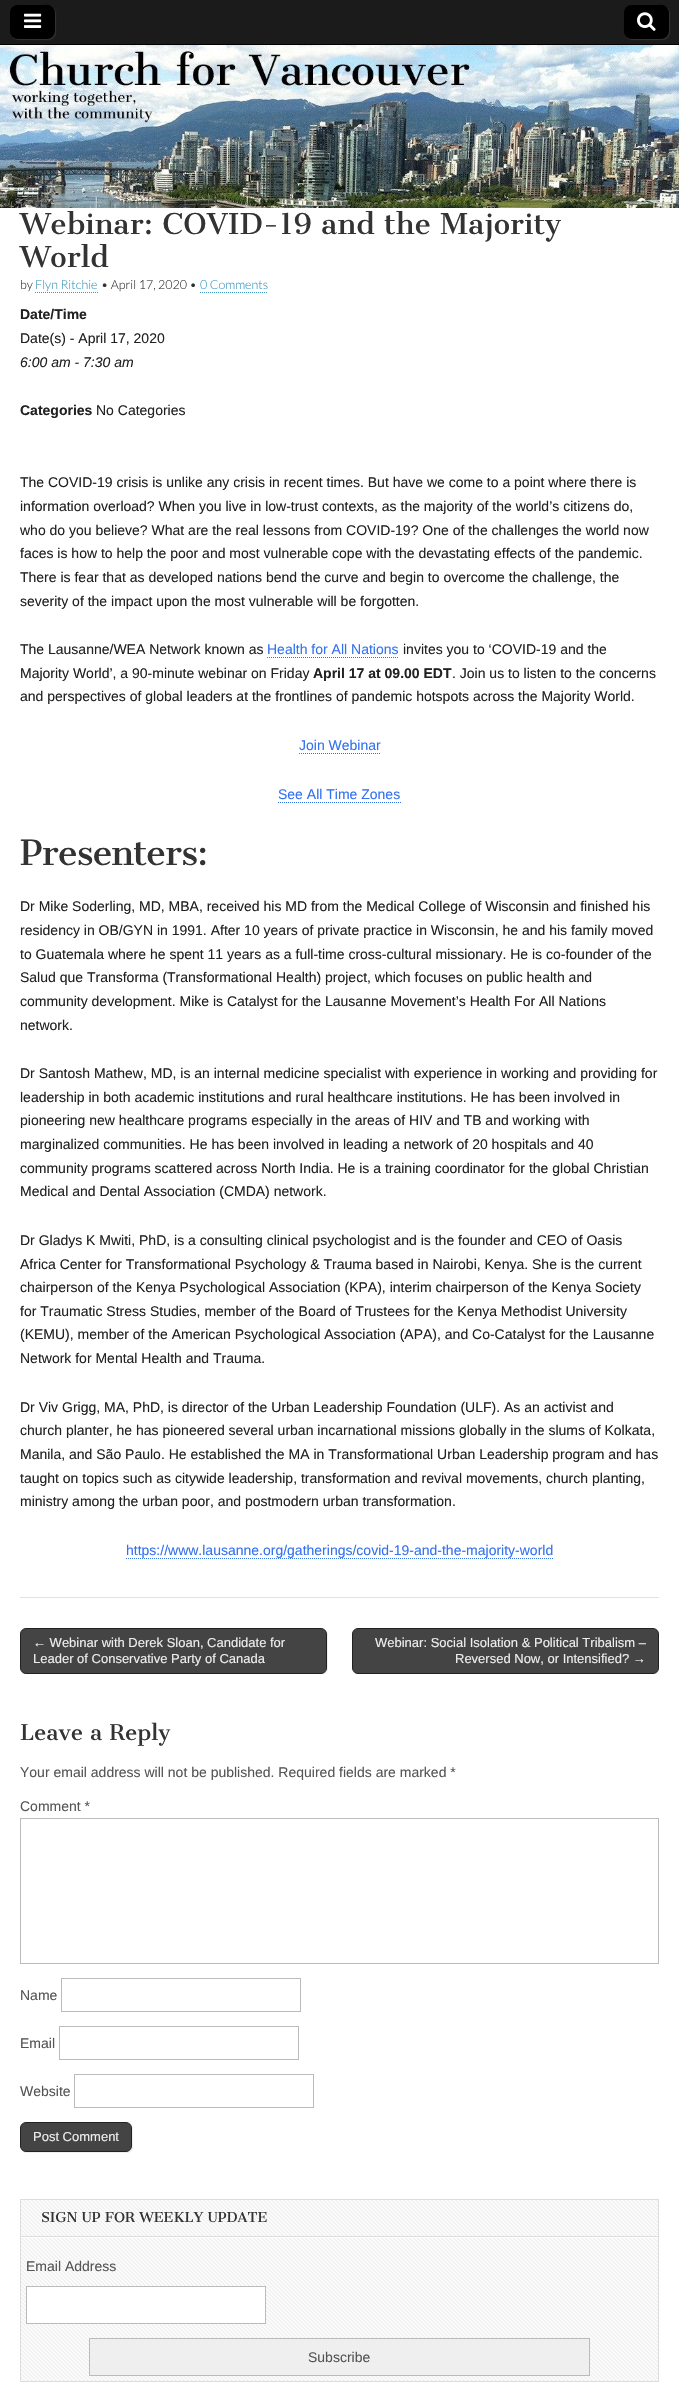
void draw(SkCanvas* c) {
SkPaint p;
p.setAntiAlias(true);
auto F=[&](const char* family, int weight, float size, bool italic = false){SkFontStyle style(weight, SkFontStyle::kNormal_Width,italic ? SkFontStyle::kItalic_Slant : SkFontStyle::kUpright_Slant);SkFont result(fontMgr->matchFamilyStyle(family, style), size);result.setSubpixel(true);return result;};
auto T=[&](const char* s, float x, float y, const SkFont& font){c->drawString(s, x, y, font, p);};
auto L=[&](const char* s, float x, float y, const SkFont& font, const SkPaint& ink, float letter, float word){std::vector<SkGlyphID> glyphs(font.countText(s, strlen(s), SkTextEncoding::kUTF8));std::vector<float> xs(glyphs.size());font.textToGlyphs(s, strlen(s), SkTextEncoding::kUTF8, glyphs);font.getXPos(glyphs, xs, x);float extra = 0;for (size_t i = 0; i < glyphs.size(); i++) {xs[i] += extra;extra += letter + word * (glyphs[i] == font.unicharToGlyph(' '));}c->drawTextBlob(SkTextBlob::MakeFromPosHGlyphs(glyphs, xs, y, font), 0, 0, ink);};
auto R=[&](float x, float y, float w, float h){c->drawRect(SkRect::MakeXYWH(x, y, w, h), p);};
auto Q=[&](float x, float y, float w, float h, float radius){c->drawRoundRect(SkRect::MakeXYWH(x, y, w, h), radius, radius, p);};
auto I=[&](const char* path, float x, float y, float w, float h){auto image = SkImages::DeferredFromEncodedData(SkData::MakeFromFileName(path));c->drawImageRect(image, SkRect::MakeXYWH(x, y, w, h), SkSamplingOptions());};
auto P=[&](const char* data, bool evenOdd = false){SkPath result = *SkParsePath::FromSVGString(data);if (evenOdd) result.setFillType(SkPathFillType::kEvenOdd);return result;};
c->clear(0xffffffff);
p.setColor(0xff1b1b1b);
R(0,0,679,44);
p.setColor(0xff000000);
R(0,44,679,1);
p.setColor(0xff333333);
p.setMaskFilter(SkMaskFilter::MakeBlur(kNormal_SkBlurStyle, .5));
c->drawRoundRect(SkRect::MakeXYWH(11,6,45,34),8,8,p);
p.setMaskFilter(nullptr);
p.setColor(0xff000000);
Q(10,5,45,34,8);
c->drawPath(P("M19 6h31l2 1c-3-3-6-2-10-2h-10c-22 0-22-2-22 20c0 4-1 9 3 12c-3-4-3-24 0-28c1-2 3-3 6-3z"),p);
I("1.png",24,13,18,15);
p.setColor(0xff333333);
p.setMaskFilter(SkMaskFilter::MakeBlur(kNormal_SkBlurStyle, .5));
c->drawRoundRect(SkRect::MakeXYWH(625,6,45,34),8,8,p);
p.setMaskFilter(nullptr);
p.setColor(0xff000000);
Q(624,5,45,34,8);
c->drawPath(P("M633 6h31l2 1c-3-3-6-2-10-2h-10c-22 0-22-2-22 20c0 4-1 9 3 12c-3-4-3-24 0-28c1-2 3-3 6-3z"),p);
I("2.png",637,12,19,19);
I("3.png",0,45,679,163);
p.setColor(0xffe2e2e2);
R(20,1597,639,1);
auto f1 = F("Cantata One",400,28);
p.setColor(0xff333333);
T("Webinar: COVID-19 and the Majority",20,234,f1);
T("World",20,267,f1);
auto f2 = F("Lato",300,12.5);
T("by",20,289,f2);
p.setColor(0xff3d97c2);
T("Flyn Ritchie",35,289,f2);
p.setStroke(true);
p.setStrokeWidth(1);
p.setPathEffect(SkDashPathEffect::Make({{1,1}}, 0));
c->drawPath(P("M35 292.5h63"),p);
p.setPathEffect(nullptr);
p.setStroke(false);
p.setColor(0xff333333);
T("• April 17, 2020 •",101,289,f2);
p.setColor(0xff3d97c2);
T("0 Comments",200,289,f2);
p.setStroke(true);
p.setPathEffect(SkDashPathEffect::Make({{1,1}}, 0));
c->drawPath(P("M200 292.5h68"),p);
p.setPathEffect(nullptr);
auto f3 = F("Liberation Sans",700,14);
p.setStroke(false);
p.setColor(0xff212121);
T("Date/Time",20,319,f3);
auto f4 = F("Liberation Sans",400,14);
T("Date(s) - April 17, 2020",20,343,f4);
auto f5 = F("Liberation Sans",400,14,true);
T("6:00 am - 7:30 am",20,367,f5);
T("Categories",20,415,f3);
T("No Categories",96,415,f4);
T("The COVID-19 crisis is unlike any crisis in recent times. But have we come to a point where there is",20,487,f4);
T("information overload? When you live in low-trust contexts, as the majority of the world’s citizens do,",20,511,f4);
T("who do you believe? What are the real lessons from COVID-19? One of the challenges the world now",20,535,f4);
T("faces is how to help the poor and most vulnerable cope with the devastating effects of the pandemic.",20,558,f4);
T("There is fear that as developed nations bend the curve and begin to overcome the challenge, the",20,582,f4);
T("severity of the impact upon the most vulnerable will be forgotten.",20,606,f4);
T("The Lausanne/WEA Network known as",20,654,f4);
p.setColor(0xff3372f0);
T("Health for All Nations",267,654,f4);
p.setStroke(true);
p.setPathEffect(SkDashPathEffect::Make({{1,1}}, 0));
c->drawPath(P("M267 657.5h132"),p);
p.setPathEffect(nullptr);
p.setStroke(false);
p.setColor(0xff212121);
T("invites you to ‘COVID-19 and the",403,654,f4);
T("Majority World’, a 90-minute webinar on Friday",20,678,f4);
T("April 17 at 09.00 EDT",313,678,f3);
T(". Join us to listen to the concerns",452,678,f4);
T("and perspectives of global leaders at the frontlines of pandemic hotspots across the Majority World.",20,701,f4);
p.setColor(0xff3372f0);
T("Join Webinar",299,750,f4);
p.setStroke(true);
p.setPathEffect(SkDashPathEffect::Make({{1,1}}, 0));
c->drawPath(P("M299 753.5h81"),p);
p.setPathEffect(nullptr);
p.setStroke(false);
T("See All Time Zones",278,799,f4);
p.setStroke(true);
p.setPathEffect(SkDashPathEffect::Make({{1,1}}, 0));
c->drawPath(P("M278 802.5h123"),p);
p.setPathEffect(nullptr);
auto f6 = F("Cantata One",400,34);
p.setStroke(false);
p.setColor(0xff333333);
L("Presenters:",20,865,f6,p,-1,0);
p.setColor(0xff212121);
T("Dr Mike Soderling, MD, MBA, received his MD from the Medical College of Wisconsin and finished his",20,911,f4);
T("residency in OB/GYN in 1991. After 10 years of private practice in Wisconsin, he and his family moved",20,935,f4);
T("to Guatemala where he spent 11 years as a full-time cross-cultural missionary. He is co-founder of the",20,959,f4);
T("Salud que Transforma (Transformational Health) project, which focuses on public health and",20,982,f4);
T("community development. Mike is Catalyst for the Lausanne Movement’s Health For All Nations",20,1006,f4);
T("network.",20,1030,f4);
T("Dr Santosh Mathew, MD, is an internal medicine specialist with experience in working and providing for",20,1078,f4);
T("leadership in both academic institutions and rural healthcare institutions. He has been involved in",20,1102,f4);
T("pioneering new healthcare programs especially in the areas of HIV and TB and working with",20,1125,f4);
T("marginalized communities. He has been involved in leading a network of 20 hospitals and 40",20,1149,f4);
T("community programs scattered across North India. He is a training coordinator for the global Christian",20,1173,f4);
T("Medical and Dental Association (CMDA) network.",20,1196,f4);
T("Dr Gladys K Mwiti, PhD, is a consulting clinical psychologist and is the founder and CEO of Oasis",20,1245,f4);
T("Africa Center for Transformational Psychology & Trauma based in Nairobi, Kenya. She is the current",20,1269,f4);
T("chairperson of the Kenya Psychological Association (KPA), interim chairperson of the Kenya Society",20,1292,f4);
T("for Traumatic Stress Studies, member of the Board of Trustees for the Kenya Methodist University",20,1316,f4);
T("(KEMU), member of the American Psychological Association (APA), and Co-Catalyst for the Lausanne",20,1339,f4);
T("Network for Mental Health and Trauma.",20,1363,f4);
T("Dr Viv Grigg, MA, PhD, is director of the Urban Leadership Foundation (ULF). As an activist and",20,1412,f4);
T("church planter, he has pioneered several urban incarnational missions globally in the slums of Kolkata,",20,1435,f4);
T("Manila, and São Paulo. He established the MA in Transformational Urban Leadership program and has",20,1459,f4);
T("taught on topics such as citywide leadership, transformation and revival movements, church planting,",20,1483,f4);
T("ministry among the urban poor, and postmodern urban transformation.",20,1506,f4);
p.setColor(0xff3372f0);
T("https://www.lausanne.org/gatherings/covid-19-and-the-majority-world",126,1555,f4);
p.setStroke(true);
p.setPathEffect(SkDashPathEffect::Make({{1,1}}, 0));
c->drawPath(P("M126 1558.5h427"),p);
p.setPathEffect(nullptr);
c->save();
c->clipRect(SkRect::MakeXYWH(20,1628,639,46));
p.setStroke(false);
p.setColor(0xffeeeeee);
c->drawPath(P("M22 1673c1 1 3 2 5 2h295c3 0 6-3 6-6v-34c0-2-1-4-2-5c1 1 1 3 1 4v34c0 3-3 6-6 6h-295c-1 0-3 0-4-1z"),p);
c->restore();
p.setColor(0xff444444);
c->drawRoundRect(SkRect::MakeXYWH(20.5,1628.5,306,45),5.5,5.5,p);
p.setStroke(true);
p.setColor(0xff222222);
c->drawRoundRect(SkRect::MakeXYWH(20.5,1628.5,306,45),5.5,5.5,p);
auto f7 = F("Liberation Sans",400,13);
p.setStroke(false);
p.setColor(0xffeeeeee);
T("← Webinar with Derek Sloan, Candidate for",33,1647,f7);
T("Leader of Conservative Party of Canada",33,1663,f7);
c->save();
c->clipRect(SkRect::MakeXYWH(20,1628,639,46));
c->drawPath(P("M354 1673c1 1 3 2 5 2h295c3 0 6-3 6-6v-34c0-2-1-4-2-5c1 1 1 3 1 4v34c0 3-3 6-6 6h-295c-1 0-3 0-4-1z"),p);
c->restore();
p.setColor(0xff444444);
c->drawRoundRect(SkRect::MakeXYWH(352.5,1628.5,306,45),5.5,5.5,p);
p.setStroke(true);
p.setColor(0xff222222);
c->drawRoundRect(SkRect::MakeXYWH(352.5,1628.5,306,45),5.5,5.5,p);
p.setStroke(false);
p.setColor(0xffeeeeee);
T("Webinar: Social Isolation & Political Tribalism –",375,1647,f7);
T("Reversed Now, or Intensified? →",455,1663,f7);
auto f8 = F("Cantata One",400,21);
p.setColor(0xff333333);
T("Leave a Reply",20,1740,f8);
p.setColor(0xff555555);
T("Your email address will not be published. Required fields are marked *",20,1777,f4);
T("Comment *",20,1811,f4);
p.setStroke(true);
p.setColor(0xffbbbbbb);
c->drawRect(SkRect::MakeXYWH(20.5,1818.5,638,145),p);
p.setStroke(false);
p.setColor(0xff555555);
T("Name",20,2000,f4);
p.setStroke(true);
p.setColor(0xffbbbbbb);
c->drawRect(SkRect::MakeXYWH(61.5,1978.5,239,33),p);
p.setStroke(false);
p.setColor(0xff555555);
T("Email",20,2048,f4);
p.setStroke(true);
p.setColor(0xffbbbbbb);
c->drawRect(SkRect::MakeXYWH(59.5,2026.5,239,33),p);
p.setStroke(false);
p.setColor(0xff555555);
T("Website",20,2096,f4);
p.setStroke(true);
p.setColor(0xffbbbbbb);
c->drawRect(SkRect::MakeXYWH(74.5,2074.5,239,33),p);
p.setStroke(false);
p.setColor(0xffeeeeee);
c->drawPath(P("M22 2151c1 1 3 2 5 2h100c3 0 6-3 6-6v-18c0-2-1-4-2-5c1 1 1 3 1 4v18c0 3-3 6-6 6h-100c-1 0-3 0-4-1z"),p);
p.setColor(0xff444444);
c->drawRoundRect(SkRect::MakeXYWH(20.5,2122.5,111,29),5.5,5.5,p);
p.setStroke(true);
p.setColor(0xff222222);
c->drawRoundRect(SkRect::MakeXYWH(20.5,2122.5,111,29),5.5,5.5,p);
p.setStroke(false);
p.setColor(0xffeeeeee);
T("Post Comment",33,2141,f7);
I("4.png",21,2200,637,181);
p.setStroke(true);
p.setColor(0xffdddddd);
c->drawRect(SkRect::MakeXYWH(20.5,2199.5,638,182),p);
p.setStroke(false);
p.setColor(0xffffffff);
R(21,2237,637,1);
p.setColor(0xffdddddd);
R(21,2236,637,1);
auto f9 = F("Cantata One",400,13.25);
p.setColor(0xff333333);
T("SIGN UP FOR WEEKLY UPDATE",41,2222,f9);
p.setColor(0xff555555);
T("Email Address",26,2271,f4);
p.setColor(0xffffffff);
c->drawRect(SkRect::MakeXYWH(26.5,2286.5,239,37),p);
p.setStroke(true);
p.setColor(0xffbbbbbb);
c->drawRect(SkRect::MakeXYWH(26.5,2286.5,239,37),p);
p.setStroke(false);
p.setColor(0xffefefef);
c->drawRect(SkRect::MakeXYWH(89.5,2338.5,500,37),p);
p.setStroke(true);
p.setColor(0xffbbbbbb);
c->drawRect(SkRect::MakeXYWH(89.5,2338.5,500,37),p);
p.setStroke(false);
p.setColor(0xff555555);
T("Subscribe",308,2362,f4);
}
